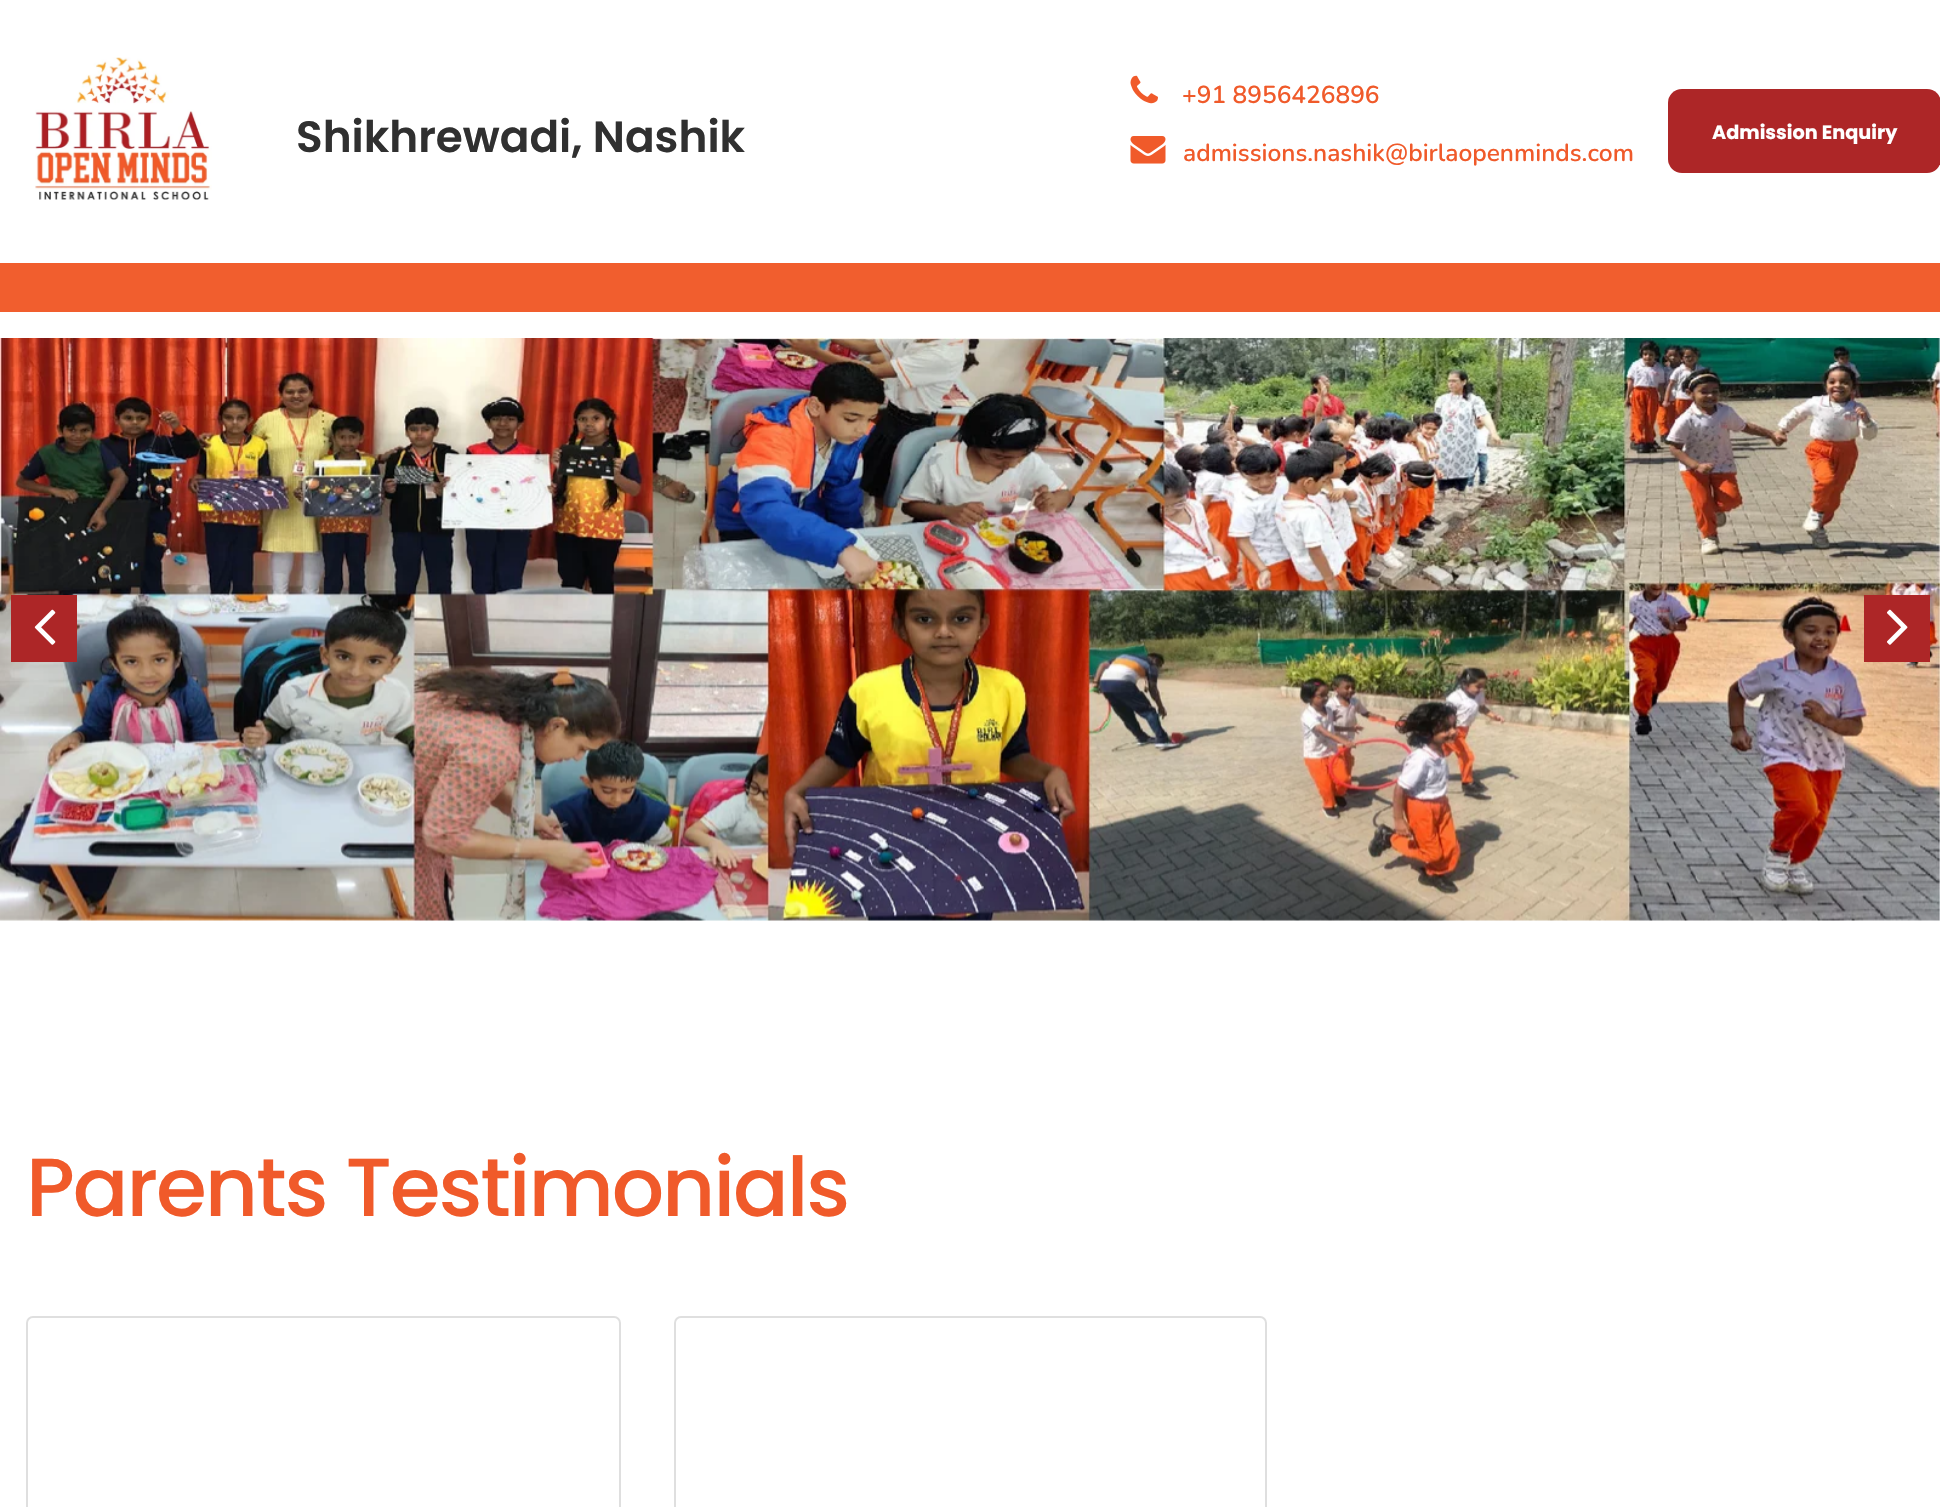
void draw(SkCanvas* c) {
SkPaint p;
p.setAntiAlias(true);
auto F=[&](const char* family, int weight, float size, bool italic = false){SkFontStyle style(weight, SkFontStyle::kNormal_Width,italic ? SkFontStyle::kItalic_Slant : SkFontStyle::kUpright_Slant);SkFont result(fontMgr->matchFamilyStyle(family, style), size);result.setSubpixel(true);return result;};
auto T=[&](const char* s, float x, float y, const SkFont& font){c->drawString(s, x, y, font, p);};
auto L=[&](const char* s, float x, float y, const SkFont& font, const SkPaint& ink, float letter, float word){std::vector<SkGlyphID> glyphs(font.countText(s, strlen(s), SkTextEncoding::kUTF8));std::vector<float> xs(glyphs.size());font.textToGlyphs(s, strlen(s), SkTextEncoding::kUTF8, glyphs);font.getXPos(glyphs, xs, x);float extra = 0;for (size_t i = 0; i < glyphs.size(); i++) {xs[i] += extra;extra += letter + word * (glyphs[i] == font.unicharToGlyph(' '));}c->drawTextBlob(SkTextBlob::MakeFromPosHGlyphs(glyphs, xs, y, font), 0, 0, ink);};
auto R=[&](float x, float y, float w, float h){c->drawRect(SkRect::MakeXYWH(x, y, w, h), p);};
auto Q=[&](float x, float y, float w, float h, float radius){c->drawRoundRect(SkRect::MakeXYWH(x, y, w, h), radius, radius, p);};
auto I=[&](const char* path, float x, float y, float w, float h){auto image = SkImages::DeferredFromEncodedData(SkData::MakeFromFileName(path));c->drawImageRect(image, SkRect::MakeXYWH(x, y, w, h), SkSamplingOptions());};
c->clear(0xffffffff);
I("1.png",35,57,177,143);
auto f1 = F("Poppins",600,43.75);
p.setColor(0xff303030);
T("Shikhrewadi, Nashik",296,152,f1);
I("2.png",1130,75,28,29);
auto f2 = F("Nunito",600,24.5);
p.setColor(0xfff05a2a);
T("+91 8956426896",1182,103,f2);
I("3.png",1130,136,36,28);
T("admissions.nashik@birlaopenminds.com",1183,161,f2);
p.setColor(0xffad2627);
Q(1668,89,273,84,14);
auto f3 = F("Poppins",700,19.25);
p.setColor(0xffffffff);
T("Admission Enquiry",1712,139,f3);
p.setColor(0xfff15e2e);
R(0,263,1940,49);
I("4.png",0,338,1940,583);
p.setColor(0xffad2627);
R(11,595,66,67);
I("5.png",34,609,22,36);
R(1864,595,66,67);
I("6.png",1887,609,21,36);
auto f4 = F("Poppins",500,82.25);
p.setColor(0xfff05a2a);
L("Parents Testimonials",26,1216,f4,p,-2.1,0);
p.setStroke(true);
p.setStrokeWidth(2);
p.setColor(0xffdfdfdf);
c->drawRoundRect(SkRect::MakeXYWH(27,1317,593,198),6,6,p);
c->drawRoundRect(SkRect::MakeXYWH(675,1317,591,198),6,6,p);
}
